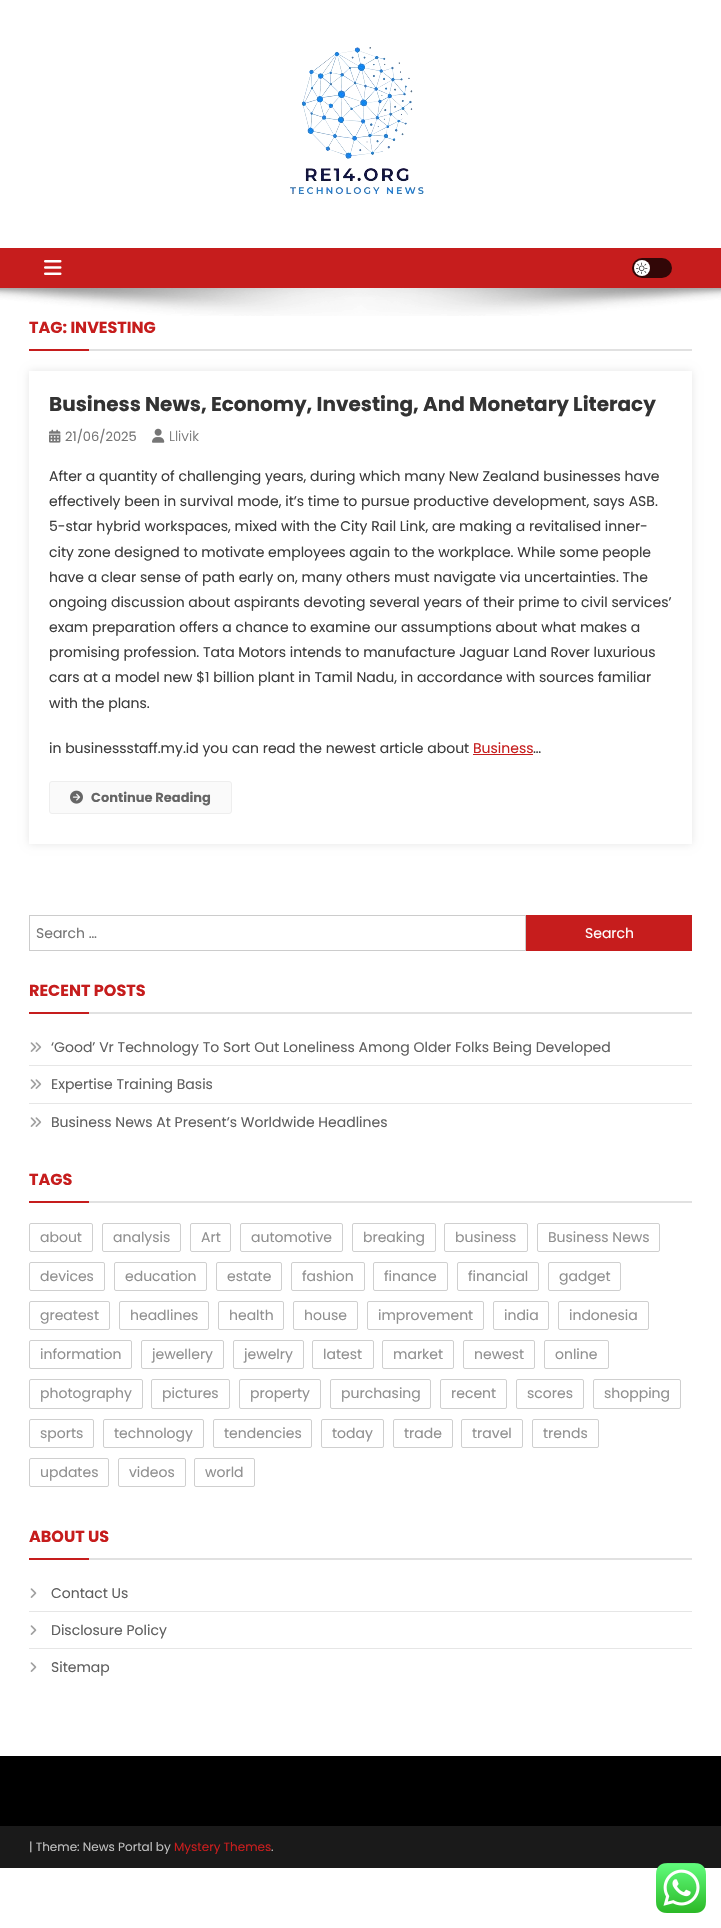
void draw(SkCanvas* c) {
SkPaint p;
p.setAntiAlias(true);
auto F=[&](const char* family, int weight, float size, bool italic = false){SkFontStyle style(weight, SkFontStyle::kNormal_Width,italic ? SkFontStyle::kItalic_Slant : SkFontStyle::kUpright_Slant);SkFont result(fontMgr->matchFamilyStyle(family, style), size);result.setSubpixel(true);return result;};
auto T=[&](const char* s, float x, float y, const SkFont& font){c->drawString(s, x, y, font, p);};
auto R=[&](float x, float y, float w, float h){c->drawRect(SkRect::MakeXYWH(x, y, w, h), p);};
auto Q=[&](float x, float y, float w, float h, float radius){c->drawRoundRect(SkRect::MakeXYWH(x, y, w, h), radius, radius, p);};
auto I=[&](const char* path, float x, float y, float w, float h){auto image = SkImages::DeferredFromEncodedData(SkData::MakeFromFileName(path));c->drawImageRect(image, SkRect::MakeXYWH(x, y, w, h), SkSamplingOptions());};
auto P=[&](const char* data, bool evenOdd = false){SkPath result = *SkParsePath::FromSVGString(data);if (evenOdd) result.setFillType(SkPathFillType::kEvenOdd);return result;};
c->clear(0xffffffff);
I("1.png",290,47,134,147);
p.setColor(0xffc61d1d);
R(0,248,721,40);
I("2.png",44,260,18,15);
p.setColor(0xff320707);
Q(632,258,40,20,10);
p.setColor(0xffffffff);
c->drawCircle(642,268,8,p);
I("3.png",636,262,12,12);
I("4.png",0,288,721,28);
p.setColor(0xffe1e1e1);
R(89,349,603,2);
auto f1 = F("Poppins",700,16);
p.setColor(0xffc61d1d);
T("TAG: INVESTING",29,333,f1);
R(29,349,60,2);
c->save();
c->clipPath(P("M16 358h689v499h-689zm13 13h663v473h-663z",true),true);
p.setColor(0x1a000000);
p.setMaskFilter(SkMaskFilter::MakeBlur(kNormal_SkBlurStyle, 4));
c->drawRect(SkRect::MakeXYWH(29,371,663,473),p);
p.setMaskFilter(nullptr);
c->restore();
auto f2 = F("Poppins",700,20);
p.setColor(0xff333333);
T("Business News, Economy, Investing, And Monetary Literacy",49,411,f2);
I("5.png",49,429,12,14);
auto f3 = F("Poppins",400,13);
p.setColor(0xff767676);
T("21/06/2025",65,441,f3);
I("6.png",152,428,13,15);
auto f4 = F("Poppins",300,14);
T("Llivik",169,441,f4);
auto f5 = F("Poppins",400,14);
p.setColor(0xff3d3d3d);
T("After a quantity of challenging years, during which many New Zealand businesses have",49,481,f5);
T("effectively been in survival mode, it’s time to pursue productive development, says ASB.",49,506,f5);
T("5-star hybrid workspaces, mixed with the City Rail Link, are making a revitalised inner-",49,531,f5);
T("city zone designed to motivate employees again to the workplace. While some people",49,557,f5);
T("have a clear sense of path early on, many others must navigate via uncertainties. The",49,582,f5);
T("ongoing discussion about aspirants devoting several years of their prime to civil services’",49,607,f5);
T("exam preparation offers a chance to examine our assumptions about what makes a",49,632,f5);
T("promising profession. Tata Motors intends to manufacture Jaguar Land Rover luxurious",49,657,f5);
T("cars at a model new $1 billion plant in Tamil Nadu, in accordance with sources familiar",49,682,f5);
T("with the plans.",49,708,f5);
T("in businessstaff.my.id you can read the newest article about",49,753,f5);
p.setColor(0xffc61d1d);
T("Business",473,753,f5);
R(473,754,60,1);
p.setColor(0xff3d3d3d);
T("…",533,753,f5);
p.setColor(0xfffafafa);
c->drawRoundRect(SkRect::MakeXYWH(49.5,781.5,182,32),2.5,2.5,p);
p.setStroke(true);
p.setStrokeWidth(1);
p.setColor(0xffeeeeee);
c->drawRoundRect(SkRect::MakeXYWH(49.5,781.5,182,32),2.5,2.5,p);
I("7.png",70,790,13,14);
auto f6 = F("Poppins",700,13);
p.setStroke(false);
p.setColor(0xff666666);
T("Continue Reading",91,802,f6);
p.setStroke(true);
p.setColor(0xffcccccc);
c->drawRect(SkRect::MakeXYWH(29.5,915.5,496,35),p);
p.setStroke(false);
p.setColor(0xff767676);
T("Search …",36,938,f5);
p.setColor(0xffc61d1d);
R(526,915,166,36);
p.setColor(0xffffffff);
T("Search",585,938,f5);
p.setColor(0xffe1e1e1);
R(89,1012,603,2);
p.setColor(0xffc61d1d);
T("RECENT POSTS",29,996,f1);
R(29,1012,60,2);
p.setColor(0xffe6e6e6);
R(29,1065,663,1);
I("8.png",30,1042,12,10);
p.setColor(0xff5f5f5f);
T("‘Good’ Vr Technology To Sort Out Loneliness Among Older Folks Being Developed",51,1052,f5);
p.setColor(0xffe6e6e6);
R(29,1103,663,1);
I("8.png",30,1079,12,10);
p.setColor(0xff5f5f5f);
T("Expertise Training Basis",51,1089,f5);
I("8.png",30,1117,12,10);
T("Business News At Present’s Worldwide Headlines",51,1127,f5);
p.setColor(0xffe1e1e1);
R(89,1201,603,2);
p.setColor(0xffc61d1d);
T("TAGS",29,1185,f1);
R(29,1201,60,2);
p.setStroke(true);
p.setColor(0xffcfcfcf);
c->drawRoundRect(SkRect::MakeXYWH(29.5,1223.5,63,28),1.5,1.5,p);
p.setStroke(false);
p.setColor(0xff909090);
T("about",40,1242,f5);
p.setStroke(true);
p.setColor(0xffcfcfcf);
c->drawRoundRect(SkRect::MakeXYWH(102.5,1223.5,78,28),1.5,1.5,p);
p.setStroke(false);
p.setColor(0xff909090);
T("analysis",113,1242,f5);
p.setStroke(true);
p.setColor(0xffcfcfcf);
c->drawRoundRect(SkRect::MakeXYWH(190.5,1223.5,40,28),1.5,1.5,p);
p.setStroke(false);
p.setColor(0xff909090);
T("Art",201,1242,f5);
p.setStroke(true);
p.setColor(0xffcfcfcf);
c->drawRoundRect(SkRect::MakeXYWH(240.5,1223.5,102,28),1.5,1.5,p);
p.setStroke(false);
p.setColor(0xff909090);
T("automotive",251,1242,f5);
p.setStroke(true);
p.setColor(0xffcfcfcf);
c->drawRoundRect(SkRect::MakeXYWH(352.5,1223.5,83,28),1.5,1.5,p);
p.setStroke(false);
p.setColor(0xff909090);
T("breaking",363,1242,f5);
p.setStroke(true);
p.setColor(0xffcfcfcf);
c->drawRoundRect(SkRect::MakeXYWH(444.5,1223.5,83,28),1.5,1.5,p);
p.setStroke(false);
p.setColor(0xff909090);
T("business",455,1242,f5);
p.setStroke(true);
p.setColor(0xffcfcfcf);
c->drawRoundRect(SkRect::MakeXYWH(537.5,1223.5,122,28),1.5,1.5,p);
p.setStroke(false);
p.setColor(0xff909090);
T("Business News",548,1242,f5);
p.setStroke(true);
p.setColor(0xffcfcfcf);
c->drawRoundRect(SkRect::MakeXYWH(29.5,1262.5,75,28),1.5,1.5,p);
p.setStroke(false);
p.setColor(0xff909090);
T("devices",40,1281,f5);
p.setStroke(true);
p.setColor(0xffcfcfcf);
c->drawRoundRect(SkRect::MakeXYWH(114.5,1262.5,92,28),1.5,1.5,p);
p.setStroke(false);
p.setColor(0xff909090);
T("education",125,1281,f5);
p.setStroke(true);
p.setColor(0xffcfcfcf);
c->drawRoundRect(SkRect::MakeXYWH(216.5,1262.5,65,28),1.5,1.5,p);
p.setStroke(false);
p.setColor(0xff909090);
T("estate",227,1281,f5);
p.setStroke(true);
p.setColor(0xffcfcfcf);
c->drawRoundRect(SkRect::MakeXYWH(291.5,1262.5,73,28),1.5,1.5,p);
p.setStroke(false);
p.setColor(0xff909090);
T("fashion",302,1281,f5);
p.setStroke(true);
p.setColor(0xffcfcfcf);
c->drawRoundRect(SkRect::MakeXYWH(373.5,1262.5,74,28),1.5,1.5,p);
p.setStroke(false);
p.setColor(0xff909090);
T("finance",384,1281,f5);
p.setStroke(true);
p.setColor(0xffcfcfcf);
c->drawRoundRect(SkRect::MakeXYWH(457.5,1262.5,81,28),1.5,1.5,p);
p.setStroke(false);
p.setColor(0xff909090);
T("financial",468,1281,f5);
p.setStroke(true);
p.setColor(0xffcfcfcf);
c->drawRoundRect(SkRect::MakeXYWH(548.5,1262.5,72,28),1.5,1.5,p);
p.setStroke(false);
p.setColor(0xff909090);
T("gadget",559,1281,f5);
p.setStroke(true);
p.setColor(0xffcfcfcf);
c->drawRoundRect(SkRect::MakeXYWH(29.5,1301.5,80,28),1.5,1.5,p);
p.setStroke(false);
p.setColor(0xff909090);
T("greatest",40,1320,f5);
p.setStroke(true);
p.setColor(0xffcfcfcf);
c->drawRoundRect(SkRect::MakeXYWH(119.5,1301.5,89,28),1.5,1.5,p);
p.setStroke(false);
p.setColor(0xff909090);
T("headlines",130,1320,f5);
p.setStroke(true);
p.setColor(0xffcfcfcf);
c->drawRoundRect(SkRect::MakeXYWH(218.5,1301.5,65,28),1.5,1.5,p);
p.setStroke(false);
p.setColor(0xff909090);
T("health",229,1320,f5);
p.setStroke(true);
p.setColor(0xffcfcfcf);
c->drawRoundRect(SkRect::MakeXYWH(293.5,1301.5,64,28),1.5,1.5,p);
p.setStroke(false);
p.setColor(0xff909090);
T("house",304,1320,f5);
p.setStroke(true);
p.setColor(0xffcfcfcf);
c->drawRoundRect(SkRect::MakeXYWH(367.5,1301.5,116,28),1.5,1.5,p);
p.setStroke(false);
p.setColor(0xff909090);
T("improvement",378,1320,f5);
p.setStroke(true);
p.setColor(0xffcfcfcf);
c->drawRoundRect(SkRect::MakeXYWH(493.5,1301.5,55,28),1.5,1.5,p);
p.setStroke(false);
p.setColor(0xff909090);
T("india",504,1320,f5);
p.setStroke(true);
p.setColor(0xffcfcfcf);
c->drawRoundRect(SkRect::MakeXYWH(558.5,1301.5,90,28),1.5,1.5,p);
p.setStroke(false);
p.setColor(0xff909090);
T("indonesia",569,1320,f5);
p.setStroke(true);
p.setColor(0xffcfcfcf);
c->drawRoundRect(SkRect::MakeXYWH(29.5,1340.5,102,28),1.5,1.5,p);
p.setStroke(false);
p.setColor(0xff909090);
T("information",40,1359,f5);
p.setStroke(true);
p.setColor(0xffcfcfcf);
c->drawRoundRect(SkRect::MakeXYWH(141.5,1340.5,82,28),1.5,1.5,p);
p.setStroke(false);
p.setColor(0xff909090);
T("jewellery",152,1359,f5);
p.setStroke(true);
p.setColor(0xffcfcfcf);
c->drawRoundRect(SkRect::MakeXYWH(233.5,1340.5,70,28),1.5,1.5,p);
p.setStroke(false);
p.setColor(0xff909090);
T("jewelry",244,1359,f5);
p.setStroke(true);
p.setColor(0xffcfcfcf);
c->drawRoundRect(SkRect::MakeXYWH(312.5,1340.5,61,28),1.5,1.5,p);
p.setStroke(false);
p.setColor(0xff909090);
T("latest",323,1359,f5);
p.setStroke(true);
p.setColor(0xffcfcfcf);
c->drawRoundRect(SkRect::MakeXYWH(382.5,1340.5,71,28),1.5,1.5,p);
p.setStroke(false);
p.setColor(0xff909090);
T("market",393,1359,f5);
p.setStroke(true);
p.setColor(0xffcfcfcf);
c->drawRoundRect(SkRect::MakeXYWH(463.5,1340.5,71,28),1.5,1.5,p);
p.setStroke(false);
p.setColor(0xff909090);
T("newest",474,1359,f5);
p.setStroke(true);
p.setColor(0xffcfcfcf);
c->drawRoundRect(SkRect::MakeXYWH(544.5,1340.5,64,28),1.5,1.5,p);
p.setStroke(false);
p.setColor(0xff909090);
T("online",555,1359,f5);
p.setStroke(true);
p.setColor(0xffcfcfcf);
c->drawRoundRect(SkRect::MakeXYWH(29.5,1379.5,113,29),1.5,1.5,p);
p.setStroke(false);
p.setColor(0xff909090);
T("photography",40,1398,f5);
p.setStroke(true);
p.setColor(0xffcfcfcf);
c->drawRoundRect(SkRect::MakeXYWH(151.5,1379.5,78,29),1.5,1.5,p);
p.setStroke(false);
p.setColor(0xff909090);
T("pictures",162,1398,f5);
p.setStroke(true);
p.setColor(0xffcfcfcf);
c->drawRoundRect(SkRect::MakeXYWH(239.5,1379.5,81,29),1.5,1.5,p);
p.setStroke(false);
p.setColor(0xff909090);
T("property",250,1398,f5);
p.setStroke(true);
p.setColor(0xffcfcfcf);
c->drawRoundRect(SkRect::MakeXYWH(330.5,1379.5,100,29),1.5,1.5,p);
p.setStroke(false);
p.setColor(0xff909090);
T("purchasing",341,1398,f5);
p.setStroke(true);
p.setColor(0xffcfcfcf);
c->drawRoundRect(SkRect::MakeXYWH(440.5,1379.5,66,29),1.5,1.5,p);
p.setStroke(false);
p.setColor(0xff909090);
T("recent",451,1398,f5);
p.setStroke(true);
p.setColor(0xffcfcfcf);
c->drawRoundRect(SkRect::MakeXYWH(516.5,1379.5,67,29),1.5,1.5,p);
p.setStroke(false);
p.setColor(0xff909090);
T("scores",527,1398,f5);
p.setStroke(true);
p.setColor(0xffcfcfcf);
c->drawRoundRect(SkRect::MakeXYWH(593.5,1379.5,87,29),1.5,1.5,p);
p.setStroke(false);
p.setColor(0xff909090);
T("shopping",604,1398,f5);
p.setStroke(true);
p.setColor(0xffcfcfcf);
c->drawRoundRect(SkRect::MakeXYWH(29.5,1419.5,64,28),1.5,1.5,p);
p.setStroke(false);
p.setColor(0xff909090);
T("sports",40,1438,f5);
p.setStroke(true);
p.setColor(0xffcfcfcf);
c->drawRoundRect(SkRect::MakeXYWH(103.5,1419.5,100,28),1.5,1.5,p);
p.setStroke(false);
p.setColor(0xff909090);
T("technology",114,1438,f5);
p.setStroke(true);
p.setColor(0xffcfcfcf);
c->drawRoundRect(SkRect::MakeXYWH(213.5,1419.5,98,28),1.5,1.5,p);
p.setStroke(false);
p.setColor(0xff909090);
T("tendencies",224,1438,f5);
p.setStroke(true);
p.setColor(0xffcfcfcf);
c->drawRoundRect(SkRect::MakeXYWH(321.5,1419.5,62,28),1.5,1.5,p);
p.setStroke(false);
p.setColor(0xff909090);
T("today",332,1438,f5);
p.setStroke(true);
p.setColor(0xffcfcfcf);
c->drawRoundRect(SkRect::MakeXYWH(393.5,1419.5,59,28),1.5,1.5,p);
p.setStroke(false);
p.setColor(0xff909090);
T("trade",404,1438,f5);
p.setStroke(true);
p.setColor(0xffcfcfcf);
c->drawRoundRect(SkRect::MakeXYWH(461.5,1419.5,61,28),1.5,1.5,p);
p.setStroke(false);
p.setColor(0xff909090);
T("travel",472,1438,f5);
p.setStroke(true);
p.setColor(0xffcfcfcf);
c->drawRoundRect(SkRect::MakeXYWH(532.5,1419.5,66,28),1.5,1.5,p);
p.setStroke(false);
p.setColor(0xff909090);
T("trends",543,1438,f5);
p.setStroke(true);
p.setColor(0xffcfcfcf);
c->drawRoundRect(SkRect::MakeXYWH(29.5,1458.5,79,28),1.5,1.5,p);
p.setStroke(false);
p.setColor(0xff909090);
T("updates",40,1477,f5);
p.setStroke(true);
p.setColor(0xffcfcfcf);
c->drawRoundRect(SkRect::MakeXYWH(118.5,1458.5,67,28),1.5,1.5,p);
p.setStroke(false);
p.setColor(0xff909090);
T("videos",129,1477,f5);
p.setStroke(true);
p.setColor(0xffcfcfcf);
c->drawRoundRect(SkRect::MakeXYWH(194.5,1458.5,60,28),1.5,1.5,p);
p.setStroke(false);
p.setColor(0xff909090);
T("world",205,1477,f5);
p.setColor(0xffe1e1e1);
R(89,1558,603,2);
p.setColor(0xffc61d1d);
T("ABOUT US",29,1542,f1);
R(29,1558,60,2);
p.setColor(0xffe6e6e6);
R(29,1611,663,1);
I("9.png",30,1588,7,10);
p.setColor(0xff5f5f5f);
T("Contact Us",51,1598,f5);
p.setColor(0xffe6e6e6);
R(29,1648,663,1);
I("9.png",30,1625,7,10);
p.setColor(0xff5f5f5f);
T("Disclosure Policy",51,1635,f5);
I("9.png",30,1662,7,10);
T("Sitemap",51,1672,f5);
p.setColor(0xff000000);
R(0,1756,721,70);
p.setColor(0xff1a1a1a);
R(0,1826,721,42);
auto f7 = F("Poppins",400,12);
p.setColor(0xffbfbfbf);
T("| Theme: News Portal by",29,1851,f7);
p.setColor(0xffc61d1d);
T("Mystery Themes",174,1851,f7);
p.setColor(0xffbfbfbf);
T(".",271,1851,f7);
I("10.png",656,1863,50,50);
}
